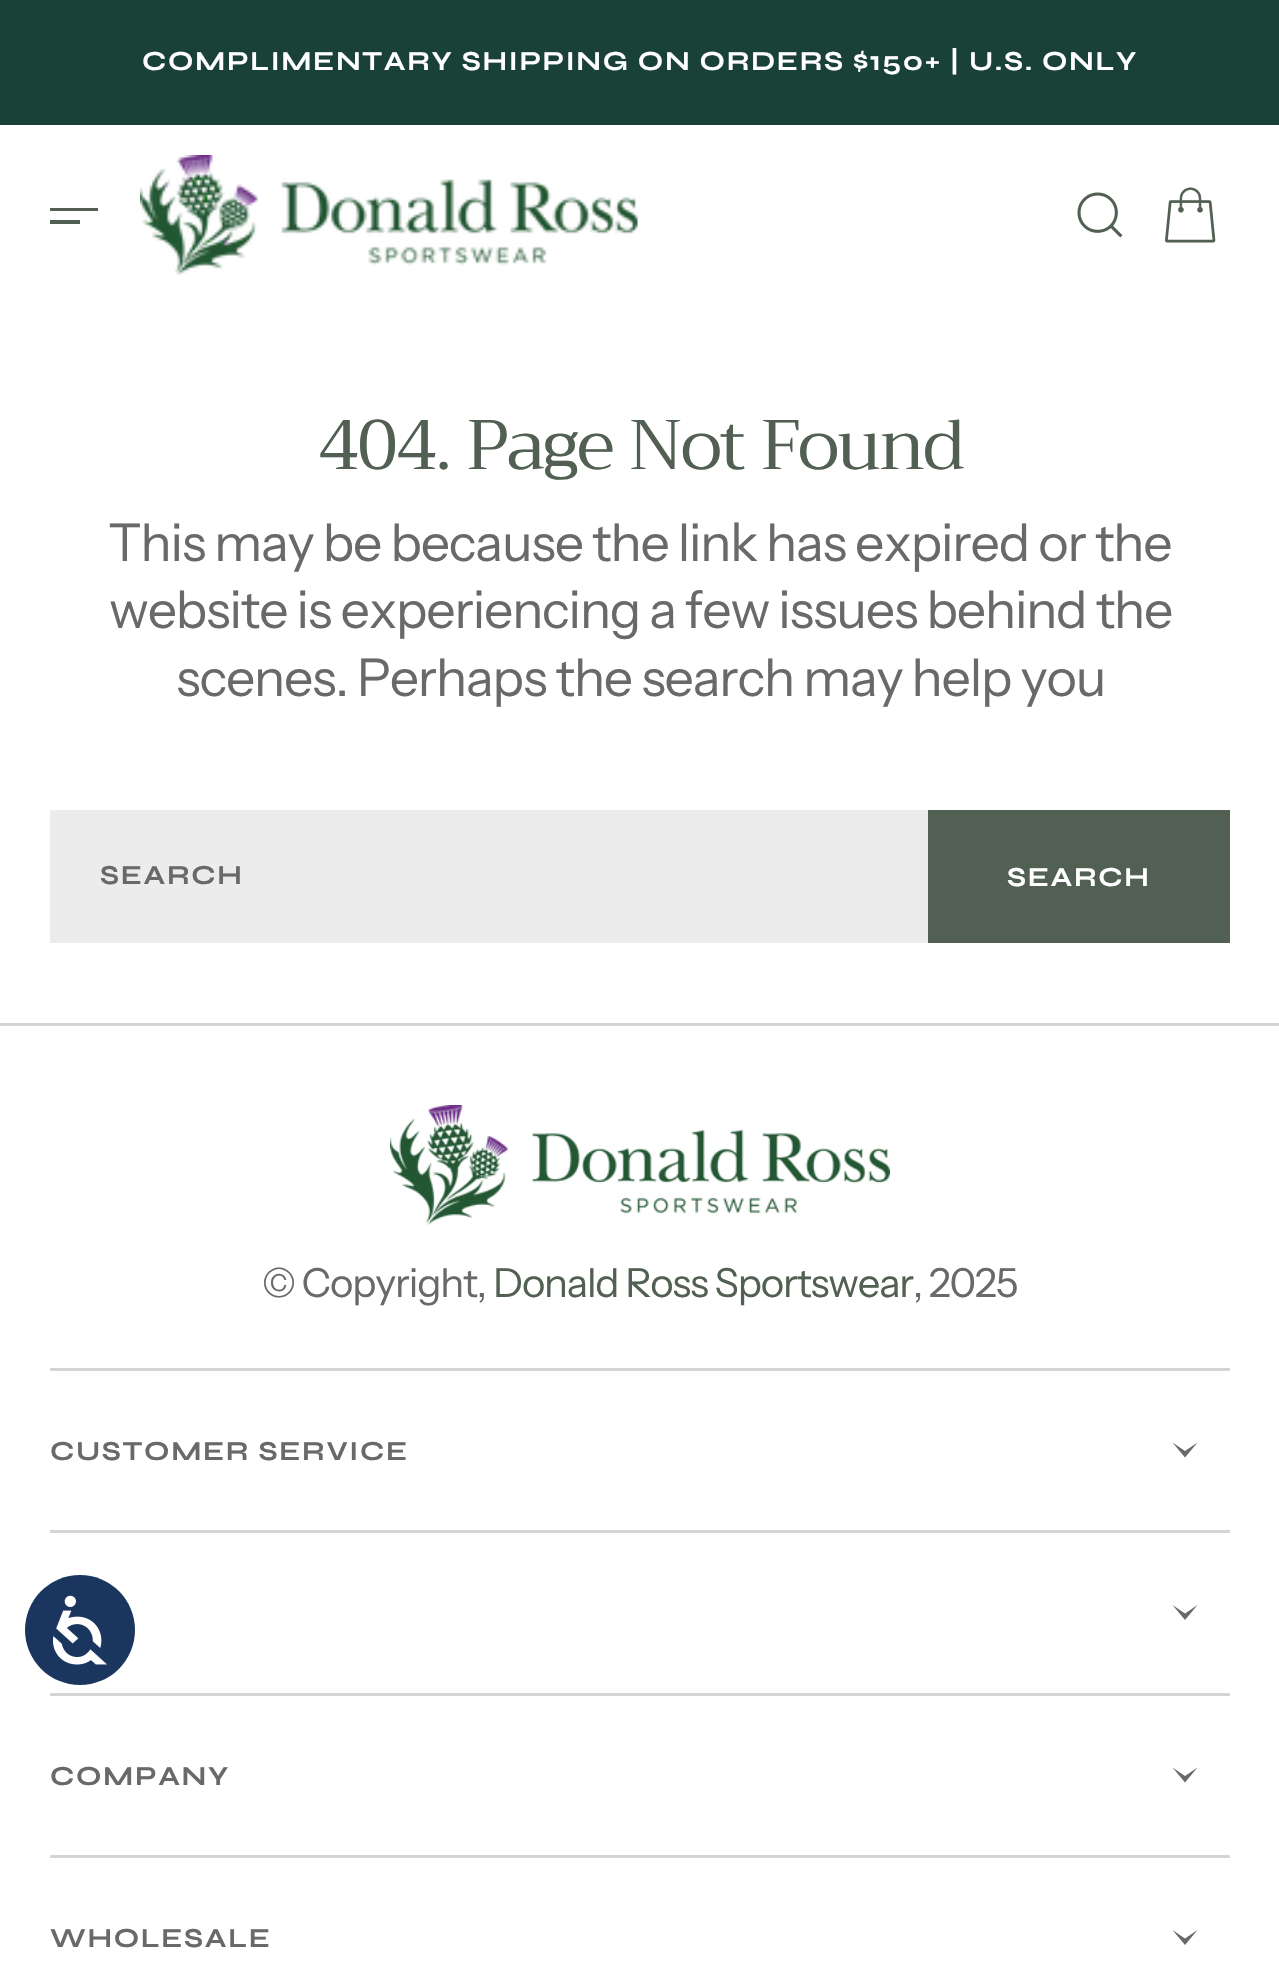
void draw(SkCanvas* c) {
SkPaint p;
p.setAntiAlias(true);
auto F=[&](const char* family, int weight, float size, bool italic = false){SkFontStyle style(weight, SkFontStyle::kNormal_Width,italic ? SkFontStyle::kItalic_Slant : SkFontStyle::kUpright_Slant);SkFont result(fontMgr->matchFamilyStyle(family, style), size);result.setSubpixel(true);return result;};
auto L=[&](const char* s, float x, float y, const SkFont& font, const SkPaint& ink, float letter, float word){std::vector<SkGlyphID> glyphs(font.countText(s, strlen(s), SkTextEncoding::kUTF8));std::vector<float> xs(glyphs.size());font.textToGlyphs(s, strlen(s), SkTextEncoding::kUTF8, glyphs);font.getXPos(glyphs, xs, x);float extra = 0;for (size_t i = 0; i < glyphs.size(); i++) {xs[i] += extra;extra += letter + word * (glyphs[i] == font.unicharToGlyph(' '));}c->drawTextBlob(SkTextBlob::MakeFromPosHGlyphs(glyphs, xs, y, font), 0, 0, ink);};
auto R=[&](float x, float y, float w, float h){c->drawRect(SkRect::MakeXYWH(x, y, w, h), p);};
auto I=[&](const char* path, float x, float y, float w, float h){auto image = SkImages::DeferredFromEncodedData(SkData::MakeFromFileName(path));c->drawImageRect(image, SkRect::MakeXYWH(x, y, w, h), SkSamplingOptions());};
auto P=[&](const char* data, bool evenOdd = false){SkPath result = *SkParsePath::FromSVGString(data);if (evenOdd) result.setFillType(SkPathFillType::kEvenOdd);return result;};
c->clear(0xffffffff);
p.setColor(0xff194138);
R(0,0,1279,125);
auto f1 = F("Syne",700,27.5);
p.setColor(0xffffffff);
L("COMPLIMENTARY SHIPPING ON ORDERS $150+ | U.S. ONLY",142,70,f1,p,1.65,0);
p.setColor(0xff516052);
c->drawPath(P("M98 208h-48v3h48zm-18 12h-30v4h30z",true),p);
I("1.png",140,155,498,120);
I("2.png",1077,192,46,46);
I("3.png",1165,187,51,56);
auto f2 = F("Trirong",400,70);
L("404. Page Not Found",318,469,f2,p,-2.1,0);
auto f3 = F("Instrument Sans",400,52);
p.setColor(0xff696969);
L("This may be because the link has expired or the",108,561,f3,p,-1.2,0);
L("website is experiencing a few issues behind the",109,628,f3,p,-1.2,0);
L("scenes. Perhaps the search may help you",176,696,f3,p,-1.2,0);
p.setColor(0xffececec);
R(50,810,878,133);
p.setColor(0xff696969);
L("SEARCH",100,884,f1,p,1.65,0);
p.setColor(0xff516052);
R(928,810,302,133);
p.setColor(0xffffffff);
L("SEARCH",1007,886,f1,p,1.65,0);
p.setColor(0xffd4d4d4);
R(0,1023,1279,3);
I("4.png",390,1105,500,120);
auto f4 = F("Instrument Sans",400,40);
p.setColor(0xff696969);
L("© Copyright,",262,1297,f4,p,-1.2,0);
p.setColor(0xff516052);
L("Donald Ross Sportswear",493,1297,f4,p,-1.2,0);
p.setColor(0xff696969);
L(", 2025",913,1297,f4,p,-1.2,0);
p.setColor(0xffd4d4d4);
R(50,1368,1180,3);
R(50,1530,1180,3);
p.setColor(0xff696969);
L("CUSTOMER SERVICE",50,1460,f1,p,1.65,0);
c->drawPath(P("M1185 1457.5l-12.5-15l12.5 8.5l12.5-8.5z"),p);
p.setColor(0xffd4d4d4);
R(50,1693,1180,3);
p.setColor(0xff696969);
c->drawPath(P("M1185 1620l-12.5-15l12.5 8.5l12.5-8.5z"),p);
p.setColor(0xffd4d4d4);
R(50,1855,1180,3);
p.setColor(0xff696969);
L("COMPANY",50,1785,f1,p,1.65,0);
c->drawPath(P("M1185 1782.5l-12.5-15l12.5 8.5l12.5-8.5z"),p);
L("WHOLESALE",50,1947,f1,p,1.65,0);
c->drawPath(P("M1185 1945l-12.5-15l12.5 8.5l12.5-8.5z"),p);
p.setColor(0xff1a355e);
c->drawCircle(80,1630,55,p);
I("5.png",52,1595,55,70);
}
